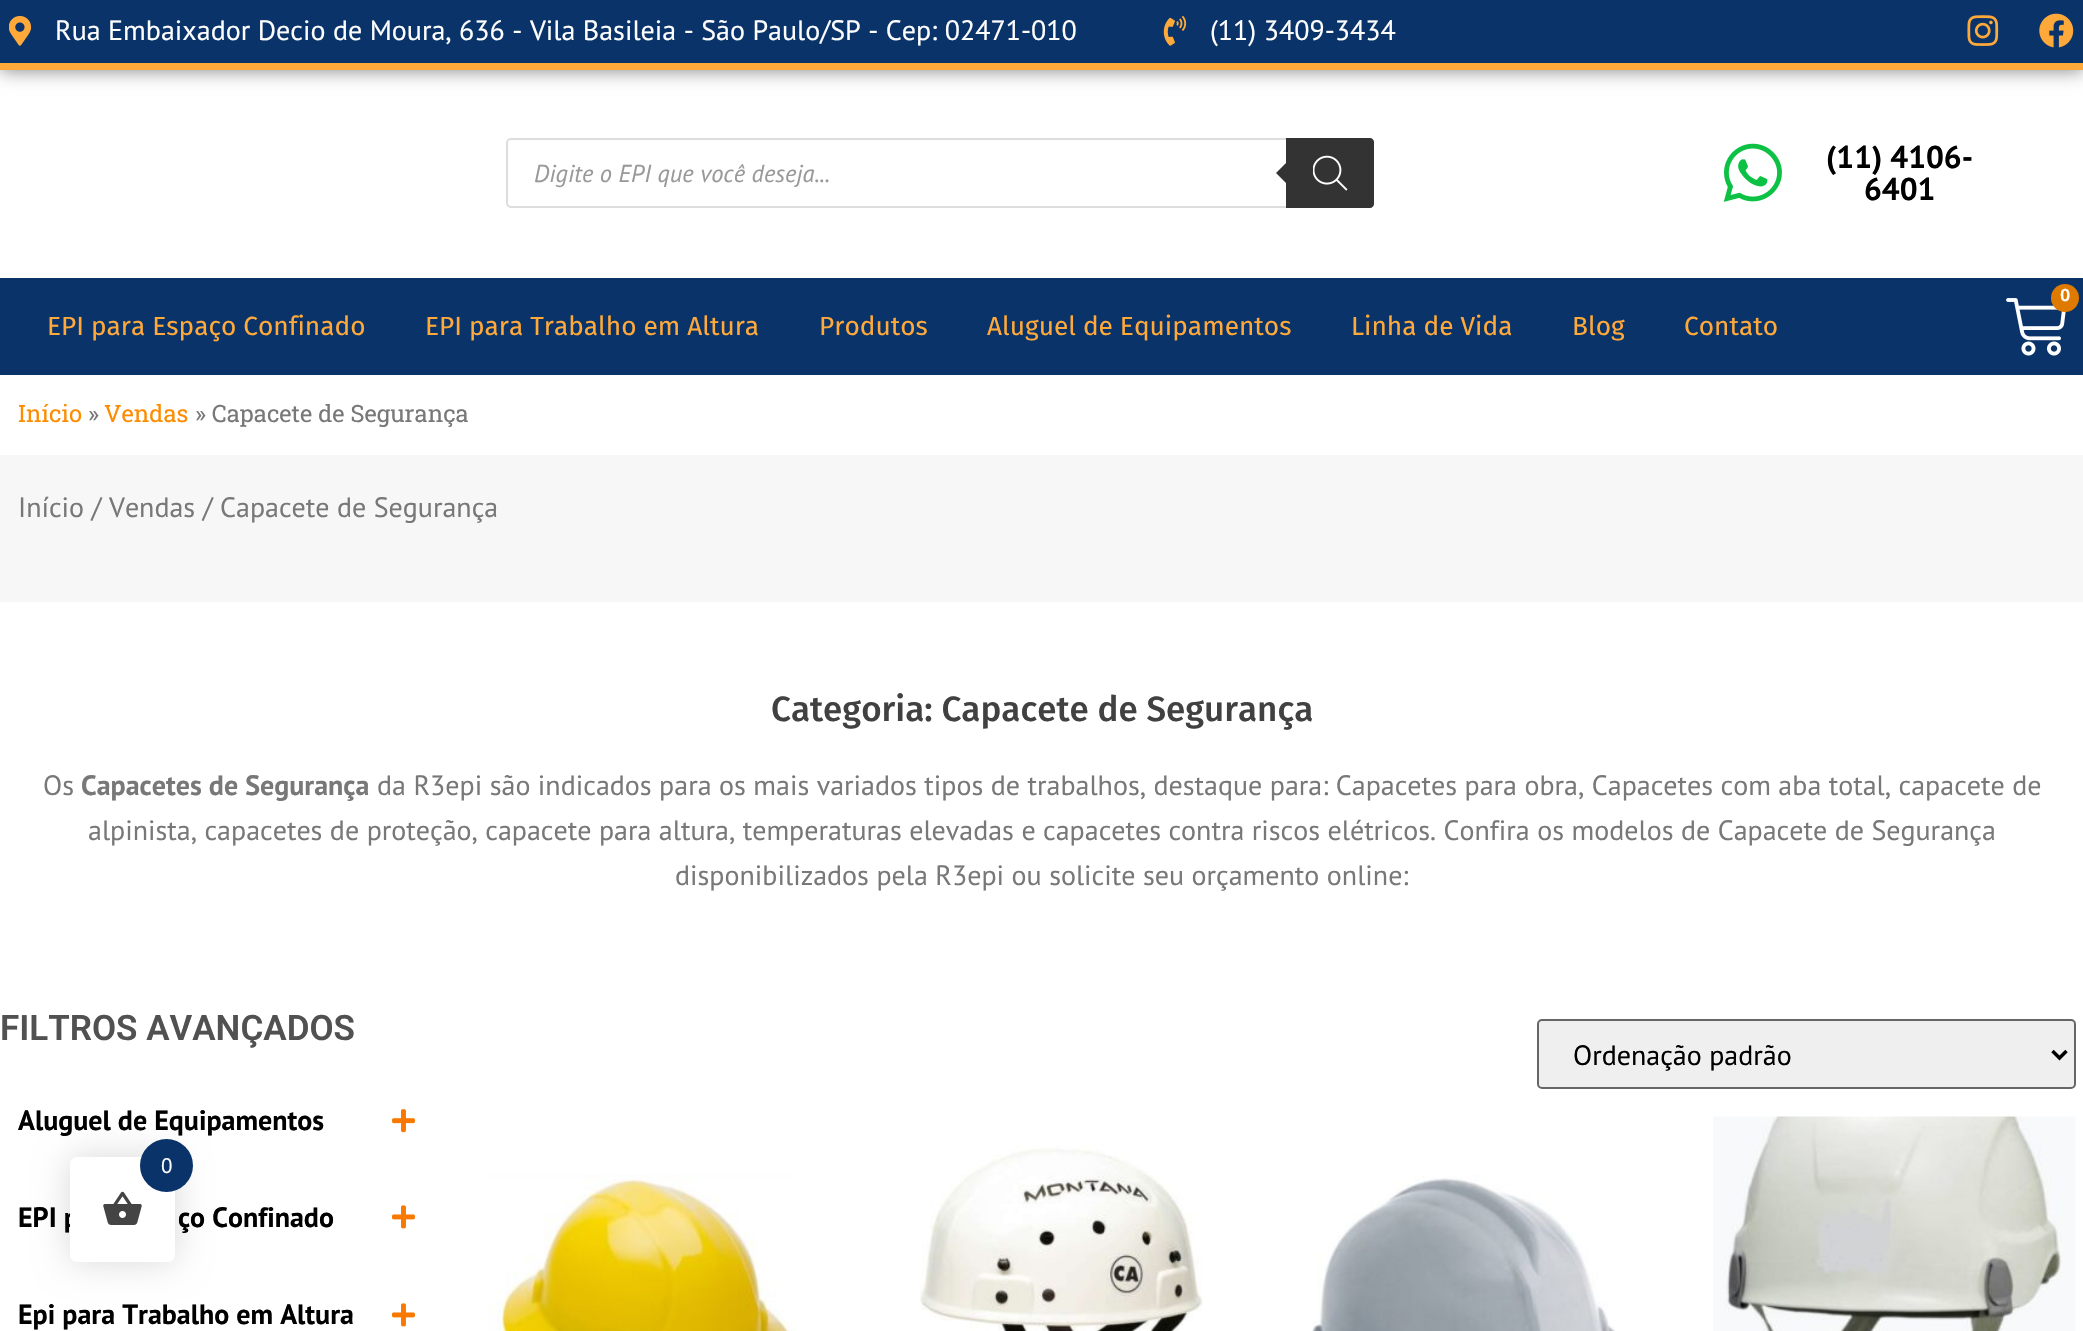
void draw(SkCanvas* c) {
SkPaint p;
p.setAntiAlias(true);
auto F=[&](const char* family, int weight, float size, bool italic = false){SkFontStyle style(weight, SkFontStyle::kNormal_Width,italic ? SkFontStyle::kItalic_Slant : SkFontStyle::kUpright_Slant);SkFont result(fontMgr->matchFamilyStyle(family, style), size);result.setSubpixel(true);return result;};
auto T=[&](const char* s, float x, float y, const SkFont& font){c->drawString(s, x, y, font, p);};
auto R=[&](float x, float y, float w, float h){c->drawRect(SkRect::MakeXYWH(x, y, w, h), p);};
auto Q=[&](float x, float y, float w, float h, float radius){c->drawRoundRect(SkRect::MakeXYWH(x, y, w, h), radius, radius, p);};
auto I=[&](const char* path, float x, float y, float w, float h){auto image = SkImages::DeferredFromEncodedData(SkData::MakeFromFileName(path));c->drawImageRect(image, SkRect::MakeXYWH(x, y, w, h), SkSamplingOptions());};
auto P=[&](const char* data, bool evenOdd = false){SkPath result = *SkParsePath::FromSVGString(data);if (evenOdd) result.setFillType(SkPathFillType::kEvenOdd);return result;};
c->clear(0xffffffff);
p.setColor(0x80000000);
p.setMaskFilter(SkMaskFilter::MakeBlur(kNormal_SkBlurStyle, 9));
c->drawRect(SkRect::MakeXYWH(0,0,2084,70),p);
p.setMaskFilter(nullptr);
p.setColor(0xff093369);
R(0,0,2083,63);
p.setColor(0xffffa93a);
R(0,63,2083,7);
I("1.png",9,16,23,30);
auto f1 = F("PT Sans",400,28);
p.setColor(0xffffffff);
T("Rua Embaixador Decio de Moura, 636 - Vila Basileia - São Paulo/SP - Cep: 02471-010",55,40,f1);
I("2.png",1163,16,24,30);
T("(11) 3409-3434",1210,40,f1);
I("3.png",1967,15,32,31);
I("4.png",2039,13,35,35);
p.setStroke(true);
p.setStrokeWidth(2);
p.setColor(0xffdddddd);
c->drawRoundRect(SkRect::MakeXYWH(507,139,866,68),4,4,p);
auto f2 = F("PT Sans",400,24.5,true);
p.setStroke(false);
p.setColor(0xff999999);
T("Digite o EPI que você deseja...",534,182,f2);
p.setColor(0xff333333);
c->drawPath(P("M1286 138h84c2 0 4 2 4 4v62c0 2-2 4-4 4h-84z"),p);
c->drawPath(P("M1290 159v28l-14-14z"),p);
I("5.png",1313,155,35,36);
I("6.png",1723,143,59,59);
auto f3 = F("PT Sans",700,31.5);
p.setColor(0xff000000);
T("(11) 4106-",1826,168,f3);
T("6401",1864,200,f3);
p.setColor(0xff093369);
R(0,278,2083,97);
I("7.png",2006,298,60,58);
p.setColor(0xffde7a00);
c->drawCircle(2065,298,14,p);
auto f4 = F("Fira Sans",500,18);
p.setColor(0xffffffff);
T("0",2060,301,f4);
auto f5 = F("Fira Sans",400,26.25);
p.setColor(0xffffa93a);
T("EPI para Espaço Confinado",47,335,f5);
T("EPI para Trabalho em Altura",425,335,f5);
T("Produtos",819,335,f5);
T("Aluguel de Equipamentos",987,335,f5);
T("Linha de Vida",1351,335,f5);
T("Blog",1572,335,f5);
T("Contato",1684,335,f5);
auto f6 = F("Roboto Slab",400,23.75);
p.setColor(0xfffd8c01);
T("Início",18,422,f6);
p.setColor(0xff787878);
T("»",88,422,f6);
p.setColor(0xfffd8c01);
T("Vendas",104,422,f6);
p.setColor(0xff787878);
T("» Capacete de Segurança",195,422,f6);
p.setColor(0xfff7f7f7);
R(0,455,2083,147);
p.setColor(0xff787878);
T("Início / Vendas / Capacete de Segurança",18,517,f1);
auto f7 = F("Fira Sans",500,35);
p.setColor(0xff414141);
T("Categoria: Capacete de Segurança",771,721,f7);
p.setColor(0xff787878);
T("Os",43,795,f1);
auto f8 = F("PT Sans",700,28);
T("Capacetes de Segurança",81,795,f8);
T("da R3epi são indicados para os mais variados tipos de trabalhos, destaque para: Capacetes para obra, Capacetes com aba total, capacete de",377,795,f1);
T("alpinista, capacetes de proteção, capacete para altura, temperaturas elevadas e capacetes contra riscos elétricos. Confira os modelos de Capacete de Segurança",88,840,f1);
T("disponibilizados pela R3epi ou solicite seu orçamento online:",675,885,f1);
auto f9 = F("Roboto",600,35);
p.setColor(0xff515151);
T("FILTROS AVANÇADOS",0,1040,f9);
p.setColor(0xff000000);
T("Aluguel de Equipamentos",18,1130,f8);
I("8.png",392,1109,23,24);
T("EPI p",18,1227,f8);
T("ço Confinado",178,1227,f8);
I("9.png",392,1205,23,24);
T("Epi para Trabalho em Altura",18,1324,f8);
I("9.png",392,1303,23,24);
p.setColor(0xffefefef);
c->drawRoundRect(SkRect::MakeXYWH(1538,1020,537,68),4,4,p);
p.setStroke(true);
p.setColor(0xff666666);
c->drawRoundRect(SkRect::MakeXYWH(1538,1020,537,68),4,4,p);
p.setStrokeWidth(3.5);
p.setColor(0xff000000);
c->drawPath(P("M2052.5 1051l7 7l7-7"),p);
p.setStroke(false);
T("Ordenação padrão",1573,1065,f1);
I("10.png",487,1174,309,157);
I("11.png",920,1146,283,185);
I("12.png",1312,1175,303,156);
I("13.png",1713,1116,363,215);
p.setColor(0x26000000);
p.setMaskFilter(SkMaskFilter::MakeBlur(kNormal_SkBlurStyle, 17.5));
c->drawRoundRect(SkRect::MakeXYWH(70,1157,105,105),7,7,p);
p.setMaskFilter(nullptr);
p.setColor(0xffffffff);
Q(70,1157,105,105,7);
I("14.png",103,1191,39,34);
p.setColor(0xff093369);
c->drawCircle(166.5,1165.5,26.5,p);
auto f10 = F("PT Sans",400,21);
p.setColor(0xffffffff);
T("0",161,1173,f10);
}
